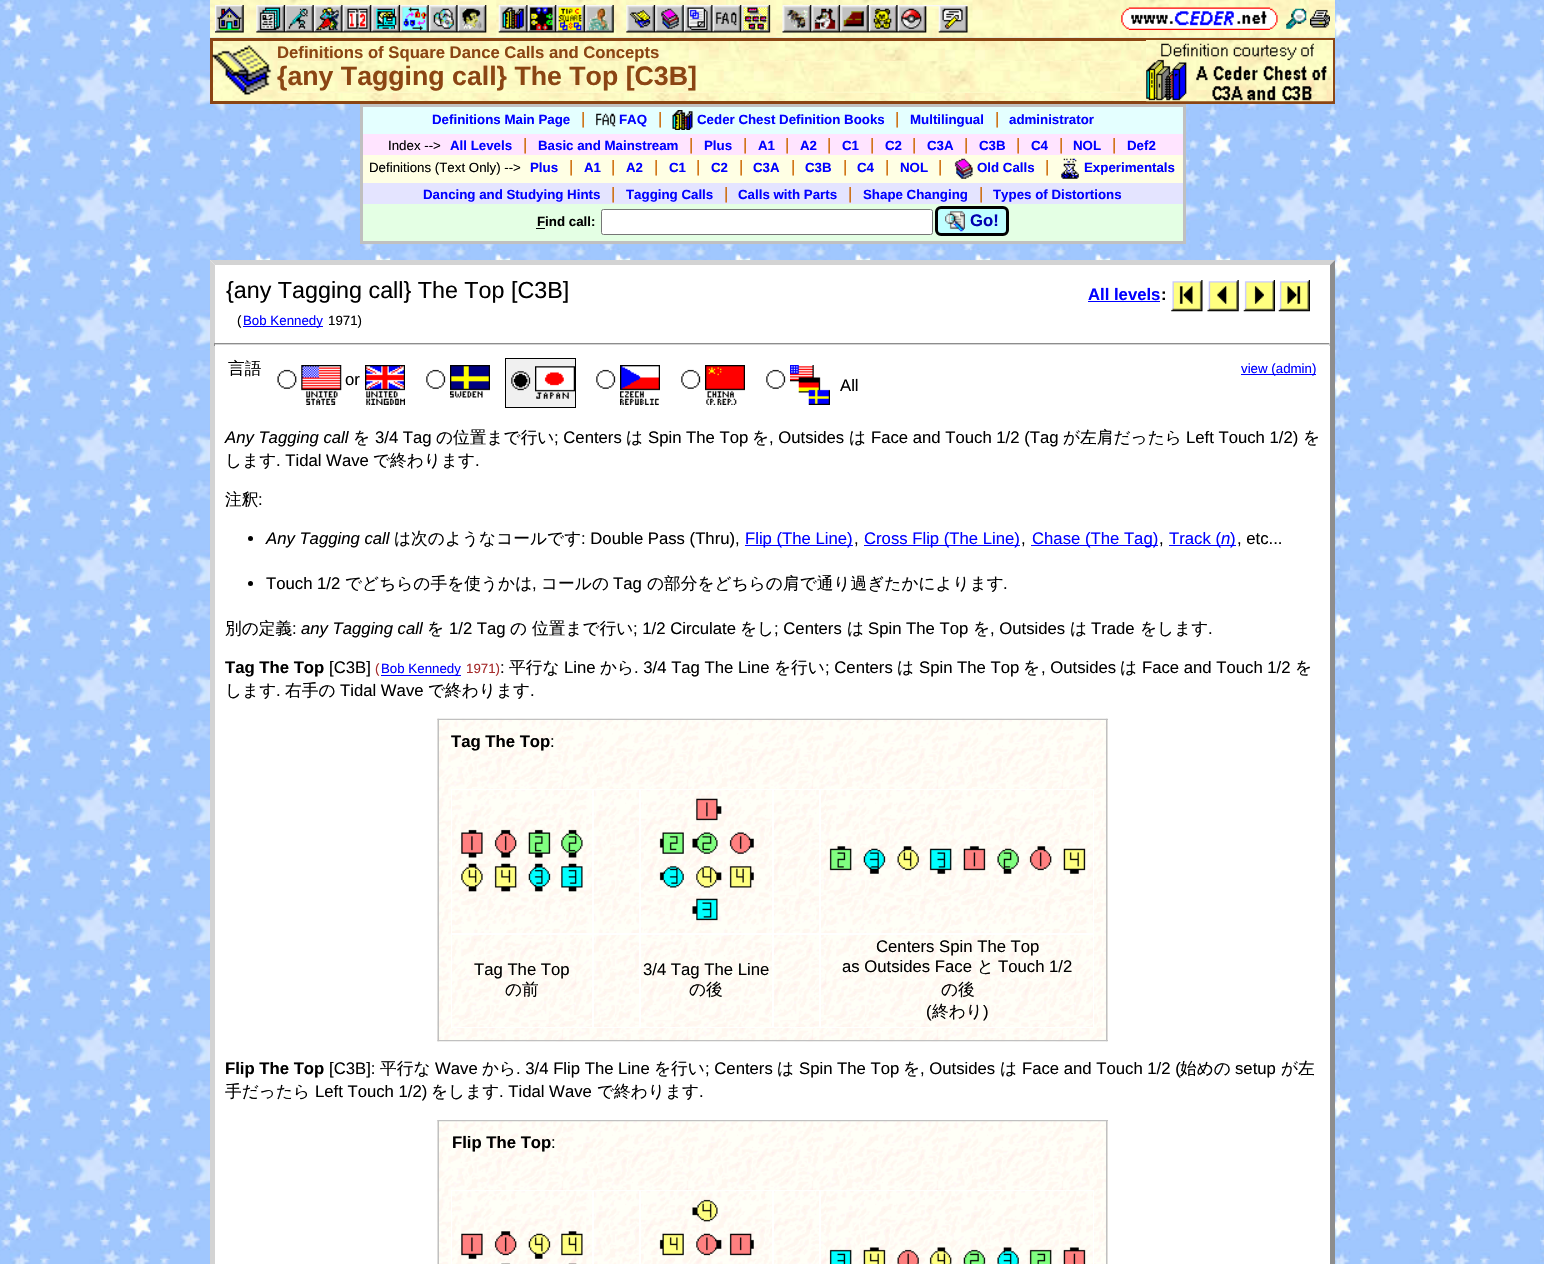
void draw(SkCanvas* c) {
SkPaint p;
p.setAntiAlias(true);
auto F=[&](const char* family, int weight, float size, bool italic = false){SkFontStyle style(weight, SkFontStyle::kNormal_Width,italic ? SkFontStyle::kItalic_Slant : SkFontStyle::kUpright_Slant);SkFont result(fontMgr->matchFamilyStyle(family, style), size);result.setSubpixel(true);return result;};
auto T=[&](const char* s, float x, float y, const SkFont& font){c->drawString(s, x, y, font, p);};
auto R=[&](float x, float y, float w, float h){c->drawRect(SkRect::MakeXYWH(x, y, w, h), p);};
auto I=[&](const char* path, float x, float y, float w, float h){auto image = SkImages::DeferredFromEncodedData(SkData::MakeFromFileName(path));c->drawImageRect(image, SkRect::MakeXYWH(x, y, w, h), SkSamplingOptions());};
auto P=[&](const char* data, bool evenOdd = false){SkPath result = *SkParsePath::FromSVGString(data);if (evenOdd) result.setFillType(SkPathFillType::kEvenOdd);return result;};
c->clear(0xffffffff);
I("1.png",0,0,1544,1264);
I("2.png",210,0,1125,38);
I("3.png",1121,7,157,23);
I("4.png",1286,8,21,21);
I("5.png",1310,9,20,19);
I("6.png",215,5,753,28);
I("7.png",210,37,1125,64);
p.setStroke(true);
p.setStrokeWidth(3);
p.setColor(0xff8b4513);
c->drawRect(SkRect::MakeXYWH(211.5,39.5,1122,63),p);
I("8.png",212,45,60,50);
p.setStroke(false);
p.setColor(0xfffff9cf);
R(278,61,865,32);
I("9.png",277,61,866,32);
auto f1 = F("Liberation Sans",700,16.7);
p.setColor(0xff8b4513);
T("Definitions of Square Dance Calls and Concepts",277,58,f1);
auto f2 = F("Liberation Sans",700,26.7);
T("{any Tagging call} The Top [C3B]",277,85,f2);
p.setColor(0xfffff9cf);
R(1146,40,187,61);
I("10.png",1146,40,187,62);
I("11.png",1146,43,181,58);
p.setColor(0xffc0c0c0);
R(360,104,825,3);
R(1183,104,3,140);
R(360,241,825,3);
R(360,104,3,140);
p.setColor(0xffe4ffff);
R(363,107,820,27);
auto f3 = F("Liberation Sans",700,13.3);
p.setColor(0xff0000ff);
T("Definitions Main Page",432,124,f3);
auto f4 = F("Liberation Sans",400,16.7);
p.setColor(0xffcc6600);
T("|",581,124,f4);
I("12.png",596,113,20,14);
p.setColor(0xff0000ff);
T("FAQ",619,124,f3);
p.setColor(0xffcc6600);
T("|",658,124,f4);
I("13.png",672,110,21,20);
p.setColor(0xff0000ff);
T("Ceder Chest Definition Books",697,124,f3);
p.setColor(0xffcc6600);
T("|",895,124,f4);
p.setColor(0xff0000ff);
T("Multilingual",910,124,f3);
p.setColor(0xffcc6600);
T("|",995,124,f4);
p.setColor(0xff0000ff);
T("administrator",1009,124,f3);
p.setColor(0xffffe4ff);
R(363,134,820,21);
auto f5 = F("Liberation Sans",400,13.3);
p.setColor(0xff000000);
T("Index -->",388,150,f5);
p.setColor(0xff0000ff);
T("All Levels",450,150,f3);
p.setColor(0xffcc6600);
T("|",523,150,f4);
p.setColor(0xff0000ff);
T("Basic and Mainstream",538,150,f3);
p.setColor(0xffcc6600);
T("|",689,150,f4);
p.setColor(0xff0000ff);
T("Plus",704,150,f3);
p.setColor(0xffcc6600);
T("|",743,150,f4);
p.setColor(0xff0000ff);
T("A1",758,150,f3);
p.setColor(0xffcc6600);
T("|",785,150,f4);
p.setColor(0xff0000ff);
T("A2",800,150,f3);
p.setColor(0xffcc6600);
T("|",827,150,f4);
p.setColor(0xff0000ff);
T("C1",842,150,f3);
p.setColor(0xffcc6600);
T("|",870,150,f4);
p.setColor(0xff0000ff);
T("C2",885,150,f3);
p.setColor(0xffcc6600);
T("|",912,150,f4);
p.setColor(0xff0000ff);
T("C3A",927,150,f3);
p.setColor(0xffcc6600);
T("|",964,150,f4);
p.setColor(0xff0000ff);
T("C3B",979,150,f3);
p.setColor(0xffcc6600);
T("|",1016,150,f4);
p.setColor(0xff0000ff);
T("C4",1031,150,f3);
p.setColor(0xffcc6600);
T("|",1059,150,f4);
p.setColor(0xff0000ff);
T("NOL",1073,150,f3);
p.setColor(0xffcc6600);
T("|",1112,150,f4);
p.setColor(0xff0000ff);
T("Def2",1127,150,f3);
p.setColor(0xffffffe4);
R(363,155,820,28);
p.setColor(0xff000000);
T("Definitions (Text Only) -->",369,172,f5);
p.setColor(0xff0000ff);
T("Plus",530,172,f3);
p.setColor(0xffcc6600);
T("|",569,172,f4);
p.setColor(0xff0000ff);
T("A1",584,172,f3);
p.setColor(0xffcc6600);
T("|",611,172,f4);
p.setColor(0xff0000ff);
T("A2",626,172,f3);
p.setColor(0xffcc6600);
T("|",654,172,f4);
p.setColor(0xff0000ff);
T("C1",669,172,f3);
p.setColor(0xffcc6600);
T("|",696,172,f4);
p.setColor(0xff0000ff);
T("C2",711,172,f3);
p.setColor(0xffcc6600);
T("|",739,172,f4);
p.setColor(0xff0000ff);
T("C3A",753,172,f3);
p.setColor(0xffcc6600);
T("|",791,172,f4);
p.setColor(0xff0000ff);
T("C3B",805,172,f3);
p.setColor(0xffcc6600);
T("|",843,172,f4);
p.setColor(0xff0000ff);
T("C4",857,172,f3);
p.setColor(0xffcc6600);
T("|",885,172,f4);
p.setColor(0xff0000ff);
T("NOL",900,172,f3);
p.setColor(0xffcc6600);
T("|",938,172,f4);
I("14.png",954,158,19,21);
p.setColor(0xff0000ff);
T("Old Calls",977,172,f3);
p.setColor(0xffcc6600);
T("|",1045,172,f4);
I("15.png",1061,158,18,21);
p.setColor(0xff0000ff);
T("Experimentals",1084,172,f3);
p.setColor(0xffe4e4ff);
R(363,183,820,21);
p.setColor(0xff0000ff);
T("Dancing and Studying Hints",423,199,f3);
p.setColor(0xffcc6600);
T("|",611,199,f4);
p.setColor(0xff0000ff);
T("Tagging Calls",626,199,f3);
p.setColor(0xffcc6600);
T("|",724,199,f4);
p.setColor(0xff0000ff);
T("Calls with Parts",738,199,f3);
p.setColor(0xffcc6600);
T("|",848,199,f4);
p.setColor(0xff0000ff);
T("Shape Changing",863,199,f3);
p.setColor(0xffcc6600);
T("|",979,199,f4);
p.setColor(0xff0000ff);
T("Types of Distortions",993,199,f3);
p.setColor(0xffe4ffe4);
R(363,204,820,37);
p.setColor(0xff000000);
T("Find call:",537,226,f3);
R(536,228,9,1);
p.setColor(0xffffffff);
c->drawRoundRect(SkRect::MakeXYWH(601.5,209.5,331,25),2,2,p);
p.setStroke(true);
p.setStrokeWidth(1);
p.setColor(0xff767676);
c->drawRoundRect(SkRect::MakeXYWH(601.5,209.5,331,25),2,2,p);
p.setStroke(false);
p.setColor(0xffbfffff);
c->drawRoundRect(SkRect::MakeXYWH(936.5,207.5,71,27),4.5,4.5,p);
p.setStroke(true);
p.setStrokeWidth(3);
p.setColor(0xff000000);
c->drawRoundRect(SkRect::MakeXYWH(936.5,207.5,71,27),4.5,4.5,p);
I("16.png",945,211,20,21);
p.setStroke(false);
p.setColor(0xff0000b0);
T("Go!",970,226,f1);
p.setColor(0xffffffff);
R(210,260,1125,1004);
p.setColor(0xffd3d3d3);
c->drawPath(P("M210 260h1125l-5 5h-1115z"),p);
p.setColor(0xff8d8d8d);
c->drawPath(P("M1335 260v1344l-5-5v-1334z"),p);
p.setColor(0xffd3d3d3);
c->drawPath(P("M210 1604v-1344l5 5v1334z"),p);
auto f6 = F("Liberation Sans",400,23.3);
p.setColor(0xff000000);
T("{any Tagging call} The Top [C3B]",226,298,f6);
T("(",237,325,f5);
p.setColor(0xff0000ff);
R(243,326,80,1);
T("Bob Kennedy",243,325,f5);
p.setColor(0xff000000);
T("1971)",328,325,f5);
p.setColor(0xff0000ff);
T("All levels",1088,300,f1);
p.setColor(0xff000000);
T(":",1161,300,f1);
p.setColor(0xff0000ff);
R(1088,301,72,1);
I("17.png",1171,280,32,32);
I("18.png",1207,280,32,32);
I("19.png",1243,280,32,32);
I("20.png",1278,280,32,32);
p.setColor(0xff8d8d8d);
R(214,343,1116,1);
p.setColor(0xffd3d3d3);
R(1329,343,1,3);
R(214,344,1116,1);
p.setColor(0xff8d8d8d);
R(214,343,1,3);
auto f7 = F("WenQuanYi Zen Hei",500,16.7);
p.setColor(0xff000000);
T("言語",228,374,f7);
I("21.png",277,369,20,20);
I("22.png",301,365,41,40);
T("or",345,385,f4);
I("23.png",365,365,40,40);
I("24.png",426,369,20,20);
I("25.png",450,365,40,33);
p.setColor(0xfff0f0f0);
c->drawRect(SkRect::MakeXYWH(505.5,358.5,70,49),p);
p.setStroke(true);
p.setStrokeWidth(1);
p.setColor(0xff000000);
c->drawRect(SkRect::MakeXYWH(505.5,358.5,70,49),p);
I("26.png",511,371,20,20);
I("27.png",535,366,40,33);
I("24.png",596,369,20,20);
I("28.png",620,365,40,40);
I("24.png",681,369,20,20);
I("29.png",705,365,40,40);
I("24.png",766,369,20,20);
I("30.png",790,365,40,40);
p.setStroke(false);
T("All",840,391,f4);
p.setColor(0xff0000ff);
R(1241,374,75,1);
T("view (admin)",1241,373,f5);
auto f8 = F("Liberation Sans",400,16.7,true);
p.setColor(0xff000000);
T("Any Tagging call",225,443,f8);
T("を",353,443,f7);
T("3/4 Tag",375,443,f4);
T("の位置まで行い",436,443,f7);
T("; Centers",554,443,f4);
T("は",626,443,f7);
T("Spin The Top",648,443,f4);
T("を",752,443,f7);
T(", Outsides",769,443,f4);
T("は",849,443,f7);
T("Face and Touch 1/2 (Tag",871,443,f4);
T("が左肩だったら",1063,443,f7);
T("Left Touch 1/2)",1186,443,f4);
T("を",1303,443,f7);
T("します",225,466,f7);
T(". Tidal Wave",276,466,f4);
T("で終わります",373,466,f7);
T(".",475,466,f4);
T("注釈",225,505,f7);
T(":",258,505,f4);
c->drawCircle(250.5,538.5,2.5,p);
T("Any Tagging call",266,544,f8);
T("は次のようなコールです",394,544,f7);
T(": Double Pass (Thru),",581,544,f4);
p.setColor(0xff0000ff);
R(745,545,108,1);
T("Flip (The Line)",745,544,f4);
R(864,545,156,1);
T("Cross Flip (The Line)",864,544,f4);
R(1031,545,127,1);
T("Chase (The Tag)",1032,544,f4);
R(1169,545,67,1);
T("Track (",1169,544,f4);
T("n",1221,544,f8);
T(")",1230,544,f4);
p.setColor(0xff000000);
T(", etc...",1237,544,f4);
T(",",854,544,f4);
T(",",1021,544,f4);
T(",",1159,544,f4);
c->drawCircle(250.5,583.5,2.5,p);
T("Touch 1/2",266,589,f4);
T("でどちらの手を使うかは",345,589,f7);
T("コールの",541,589,f7);
T("Tag",613,589,f4);
T("の部分をどちらの肩で通り過ぎたかによります",647,589,f7);
T(",",532,589,f4);
T(".",1003,589,f4);
T("別の定義",225,634,f7);
T(":",292,634,f4);
T("any Tagging call",301,634,f8);
T("を",427,634,f7);
T("1/2 Tag",449,634,f4);
T("の",510,634,f7);
T("位置まで行い",532,634,f7);
T("; 1/2 Circulate",633,634,f4);
T("をし",740,634,f7);
T("; Centers",774,634,f4);
T("は",847,634,f7);
T("Spin The Top",868,634,f4);
T("を",973,634,f7);
T(", Outsides",990,634,f4);
T("は",1070,634,f7);
T("Trade",1091,634,f4);
T("をします",1140,634,f7);
T(".",1208,634,f4);
T("Tag The Top",225,673,f1);
T("[C3B]",329,673,f4);
p.setColor(0xffa52a2a);
T("(",375,673,f5);
p.setColor(0xff0000ff);
R(381,675,80,1);
T("Bob Kennedy",381,673,f5);
p.setColor(0xffa52a2a);
T("1971)",466,673,f5);
p.setColor(0xff000000);
T(":",500,673,f4);
T("平行な",509,673,f7);
T("Line",564,673,f4);
T("から",600,673,f7);
T(". 3/4 Tag The Line",634,673,f4);
T("を行い",774,673,f7);
T("; Centers",825,673,f4);
T("は",897,673,f7);
T("Spin The Top",919,673,f4);
T("を",1023,673,f7);
T(", Outsides",1041,673,f4);
T("は",1120,673,f7);
T("Face and Touch 1/2",1142,673,f4);
T("を",1295,673,f7);
T("します",225,696,f7);
T(".",276,696,f4);
T("右手の",285,696,f7);
T("Tidal Wave",340,696,f4);
T("で終わります",428,696,f7);
T(".",530,696,f4);
p.setColor(0xfffff9f3);
R(439,720,669,320);
I("31.png",437,718,671,324);
p.setColor(0xffc0c0c0);
R(1107,719,1,1);
R(1106,719,1,322);
R(1107,1040,1,1);
R(438,719,1,322);
p.setColor(0xff000000);
T("Tag The Top",451,747,f1);
T(":",550,747,f4);
p.setColor(0xfffff9f3);
R(452,790,641,237);
I("32.png",451,788,643,239);
p.setStroke(true);
p.setColor(0xffffffff);
c->drawRect(SkRect::MakeXYWH(451.5,789.5,141,144),p);
I("33.png",461,829,122,63);
c->drawRect(SkRect::MakeXYWH(593.5,789.5,46,144),p);
c->drawRect(SkRect::MakeXYWH(640.5,789.5,132,144),p);
I("34.png",659,798,95,123);
c->drawRect(SkRect::MakeXYWH(773.5,789.5,46,144),p);
c->drawRect(SkRect::MakeXYWH(820.5,789.5,273,144),p);
I("35.png",829,846,257,28);
c->drawRect(SkRect::MakeXYWH(451.5,934.5,141,93),p);
p.setStroke(false);
p.setColor(0xff000000);
T("Tag The Top",474,975,f4);
T("の前",505,995,f7);
p.setStroke(true);
p.setColor(0xffffffff);
c->drawRect(SkRect::MakeXYWH(593.5,934.5,46,93),p);
c->drawRect(SkRect::MakeXYWH(640.5,934.5,132,93),p);
p.setStroke(false);
p.setColor(0xff000000);
T("3/4 Tag The Line",643,975,f4);
T("の後",689,995,f7);
p.setStroke(true);
p.setColor(0xffffffff);
c->drawRect(SkRect::MakeXYWH(773.5,934.5,46,93),p);
c->drawRect(SkRect::MakeXYWH(820.5,934.5,273,93),p);
p.setStroke(false);
p.setColor(0xff000000);
T("Centers Spin The Top",876,952,f4);
T("as Outsides Face",842,972,f4);
T("と",977,972,f7);
T("Touch 1/2",998,972,f4);
T("の後",941,995,f7);
T("(",926,1017,f4);
T("終わり",932,1017,f7);
T(")",983,1017,f4);
T("Flip The Top",225,1074,f1);
T("[C3B]:",329,1074,f4);
T("平行な",380,1074,f7);
T("Wave",435,1074,f4);
T("から",482,1074,f7);
T(". 3/4 Flip The Line",516,1074,f4);
T("を行い",654,1074,f7);
T("; Centers",705,1074,f4);
T("は",777,1074,f7);
T("Spin The Top",799,1074,f4);
T("を",903,1074,f7);
T(", Outsides",920,1074,f4);
T("は",1000,1074,f7);
T("Face and Touch 1/2 (",1022,1074,f4);
T("始めの",1180,1074,f7);
T("setup",1235,1074,f4);
T("が左",1281,1074,f7);
T("手だったら",225,1097,f7);
T("Left Touch 1/2)",315,1097,f4);
T("をします",431,1097,f7);
T(". Tidal Wave",499,1097,f4);
T("で終わります",597,1097,f7);
T(".",699,1097,f4);
p.setColor(0xfffff9f3);
R(439,1121,669,143);
I("36.png",437,1120,671,144);
p.setColor(0xffc0c0c0);
R(1107,1120,1,1);
R(1106,1120,1,144);
R(438,1120,1,144);
p.setColor(0xff000000);
T("Flip The Top",452,1148,f1);
T(":",551,1148,f4);
p.setColor(0xfffff9f3);
R(452,1191,640,73);
I("37.png",452,1191,641,73);
p.setStroke(true);
p.setColor(0xffffffff);
c->drawRect(SkRect::MakeXYWH(451.5,1190.5,141,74),p);
I("38.png",461,1231,122,33);
c->drawRect(SkRect::MakeXYWH(593.5,1190.5,46,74),p);
c->drawRect(SkRect::MakeXYWH(640.5,1190.5,132,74),p);
I("39.png",659,1199,95,57);
c->drawRect(SkRect::MakeXYWH(773.5,1190.5,46,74),p);
c->drawRect(SkRect::MakeXYWH(820.5,1190.5,273,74),p);
I("40.png",829,1247,257,17);
}
